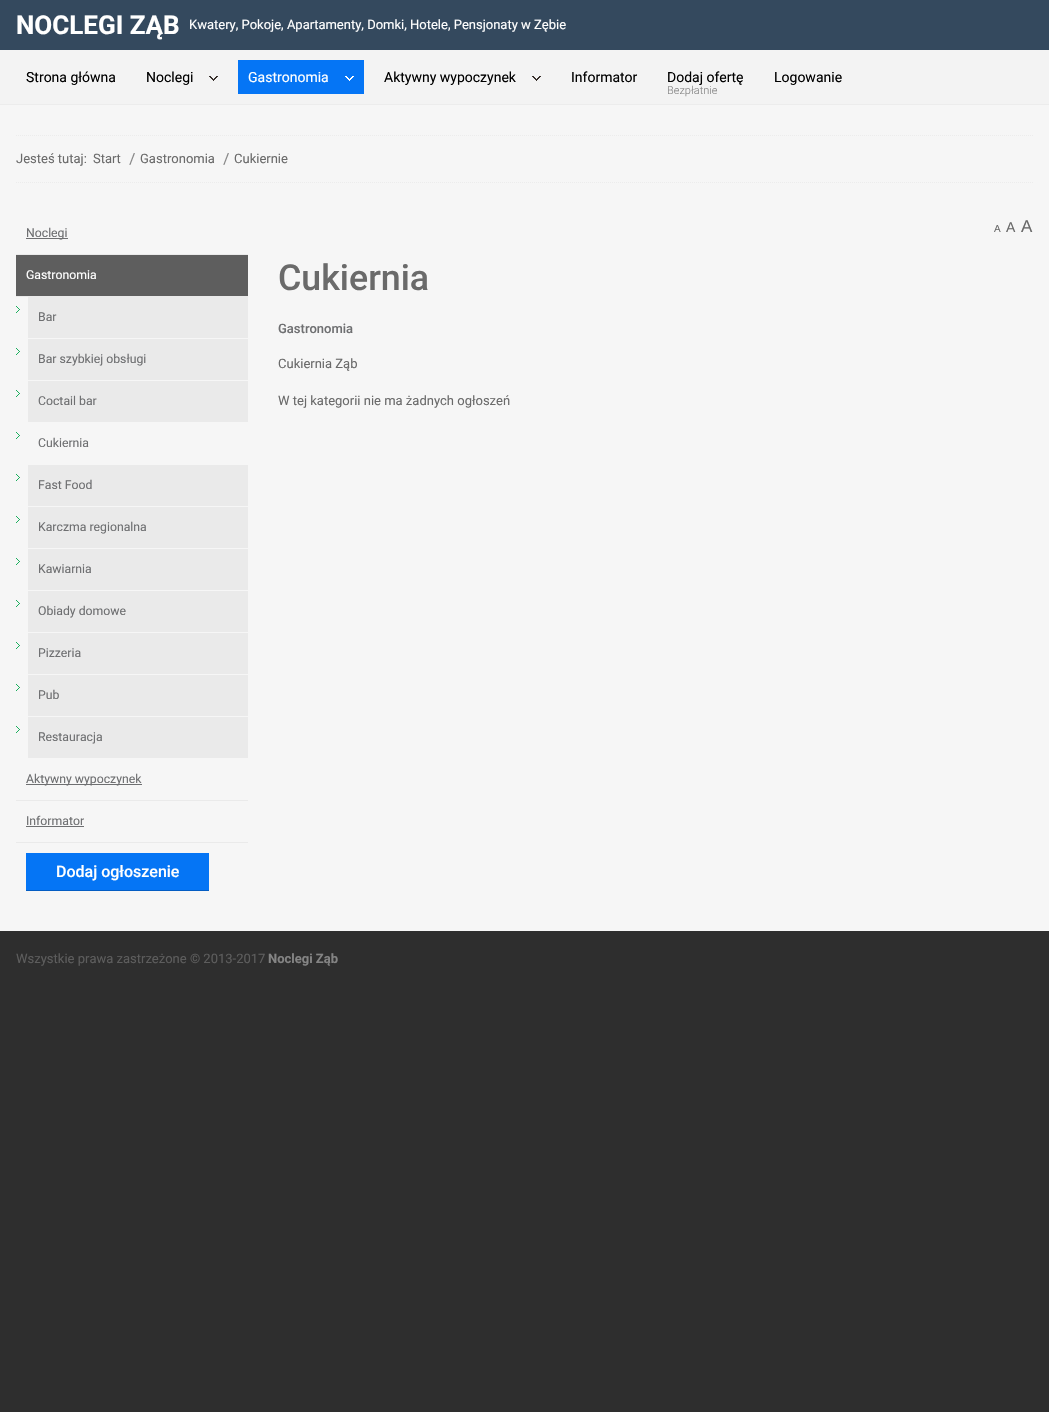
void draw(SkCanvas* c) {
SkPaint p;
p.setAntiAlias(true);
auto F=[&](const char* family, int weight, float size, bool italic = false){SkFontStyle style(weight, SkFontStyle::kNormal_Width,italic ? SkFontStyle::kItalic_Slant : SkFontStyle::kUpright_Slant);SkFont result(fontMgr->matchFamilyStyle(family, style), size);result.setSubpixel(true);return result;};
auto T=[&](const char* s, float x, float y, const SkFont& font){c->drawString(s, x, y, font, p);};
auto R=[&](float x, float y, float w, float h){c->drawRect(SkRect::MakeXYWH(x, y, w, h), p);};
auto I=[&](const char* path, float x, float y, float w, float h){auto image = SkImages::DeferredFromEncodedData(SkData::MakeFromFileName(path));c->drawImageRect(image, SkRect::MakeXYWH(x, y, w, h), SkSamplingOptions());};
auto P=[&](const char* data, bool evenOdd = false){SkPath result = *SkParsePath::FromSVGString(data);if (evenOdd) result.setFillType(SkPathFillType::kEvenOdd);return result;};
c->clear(0xff2e2e2e);
p.setColor(0xfff6f6f6);
R(0,105,1049,826);
p.setColor(0xff34495e);
R(0,0,1049,50);
auto f1 = F("Roboto",700,26);
p.setColor(0xffffffff);
T("NOCLEGI ZĄB",16,34,f1);
auto f2 = F("Roboto",400,13);
T("Kwatery, Pokoje, Apartamenty, Domki, Hotele, Pensjonaty w Zębie",189,29,f2);
p.setColor(0xfff3f3f3);
R(0,50,1049,54);
p.setColor(0xffececec);
R(0,104,1049,1);
auto f3 = F("Roboto",400,14);
p.setColor(0xff000000);
T("Strona główna",26,82,f3);
T("Noclegi",146,82,f3);
I("1.png",209,76,9,5);
p.setColor(0xff0575f5);
R(238,60,126,34);
p.setColor(0xffffffff);
T("Gastronomia",248,82,f3);
I("2.png",345,76,9,5);
p.setColor(0xff000000);
T("Aktywny wypoczynek",384,82,f3);
I("1.png",532,76,9,5);
T("Informator",571,82,f3);
T("Dodaj ofertę",667,82,f3);
auto f4 = F("Roboto",300,11);
p.setColor(0xff848484);
T("Bezpłatnie",667,94,f4);
p.setColor(0xff000000);
T("Logowanie",774,82,f3);
p.setStroke(true);
p.setStrokeWidth(1);
p.setColor(0xffececec);
p.setPathEffect(SkDashPathEffect::Make({{1,1}}, 0));
c->drawPath(P("M16 135.5h1017"),p);
p.setPathEffect(nullptr);
p.setPathEffect(SkDashPathEffect::Make({{1,1}}, 0));
c->drawPath(P("M16 182.5h1017"),p);
p.setPathEffect(nullptr);
p.setStroke(false);
p.setColor(0xff6a6a6a);
T("Jesteś tutaj:",16,163,f2);
T("Start",93,163,f2);
I("3.png",129,153,6,12);
T("Gastronomia",140,163,f2);
I("3.png",223,153,6,12);
T("Cukiernie",234,163,f2);
p.setColor(0xffeaeaea);
R(16,254,232,1);
p.setColor(0xff6e6f71);
R(26,238,42,1);
auto f5 = F("Roboto",400,12.25);
T("Noclegi",26,237,f5);
p.setColor(0xff5e5e5e);
R(16,255,232,41);
p.setColor(0xffeaeaea);
R(16,296,232,1);
p.setColor(0xffffffff);
T("Gastronomia",26,279,f5);
I("4.png",16,306,4,7);
p.setColor(0xffeaeaea);
R(28,297,220,41);
p.setColor(0xff6e6f71);
T("Bar",38,321,f5);
I("4.png",16,348,4,7);
p.setColor(0xffeaeaea);
R(28,339,220,41);
p.setColor(0xff6e6f71);
T("Bar szybkiej obsługi",38,363,f5);
I("4.png",16,390,4,7);
p.setColor(0xffeaeaea);
R(28,381,220,41);
p.setColor(0xff6e6f71);
T("Coctail bar",38,405,f5);
I("4.png",16,432,4,7);
T("Cukiernia",38,447,f5);
I("4.png",16,474,4,7);
p.setColor(0xffeaeaea);
R(28,465,220,41);
p.setColor(0xff6e6f71);
T("Fast Food",38,489,f5);
I("4.png",16,516,4,7);
p.setColor(0xffeaeaea);
R(28,507,220,41);
p.setColor(0xff6e6f71);
T("Karczma regionalna",38,531,f5);
I("4.png",16,558,4,7);
p.setColor(0xffeaeaea);
R(28,549,220,41);
p.setColor(0xff6e6f71);
T("Kawiarnia",38,573,f5);
I("4.png",16,600,4,7);
p.setColor(0xffeaeaea);
R(28,591,220,41);
p.setColor(0xff6e6f71);
T("Obiady domowe",38,615,f5);
I("4.png",16,642,4,7);
p.setColor(0xffeaeaea);
R(28,633,220,41);
p.setColor(0xff6e6f71);
T("Pizzeria",38,657,f5);
I("4.png",16,684,4,7);
p.setColor(0xffeaeaea);
R(28,675,220,41);
p.setColor(0xff6e6f71);
T("Pub",38,699,f5);
I("4.png",16,726,4,7);
p.setColor(0xffeaeaea);
R(28,717,220,41);
p.setColor(0xff6e6f71);
T("Restauracja",38,741,f5);
p.setColor(0xffeaeaea);
R(16,800,232,1);
p.setColor(0xff6e6f71);
R(26,784,116,1);
T("Aktywny wypoczynek",26,783,f5);
p.setColor(0xffeaeaea);
R(16,842,232,1);
p.setColor(0xff6e6f71);
T("Informator",26,825,f5);
R(26,826,58,1);
p.setColor(0xff0575f5);
R(26,853,183,37);
p.setColor(0xff045dc3);
R(26,890,183,1);
auto f6 = F("Roboto",500,16);
p.setColor(0xffffffff);
T("Dodaj ogłoszenie",56,877,f6);
auto f7 = F("Liberation Sans",400,10);
p.setColor(0xff6a6a6a);
T("A",994,232,f7);
auto f8 = F("Liberation Sans",400,14);
T("A",1006,232,f8);
auto f9 = F("Liberation Sans",400,17);
T("A",1021,232,f9);
auto f10 = F("Roboto",500,35.75);
T("Cukiernia",278,290,f10);
auto f11 = F("Roboto",500,13);
p.setColor(0xff6e6f71);
T("Gastronomia",278,333,f11);
p.setColor(0xff6a6a6a);
T("Cukiernia Ząb",278,368,f2);
T("W tej kategorii nie ma żadnych ogłoszeń",278,405,f2);
p.setColor(0xff5d5d5d);
T("Wszystkie prawa zastrzeżone © 2013-2017",16,963,f2);
auto f12 = F("Roboto",700,13);
p.setColor(0xff848484);
T("Noclegi Ząb",268,963,f12);
}
